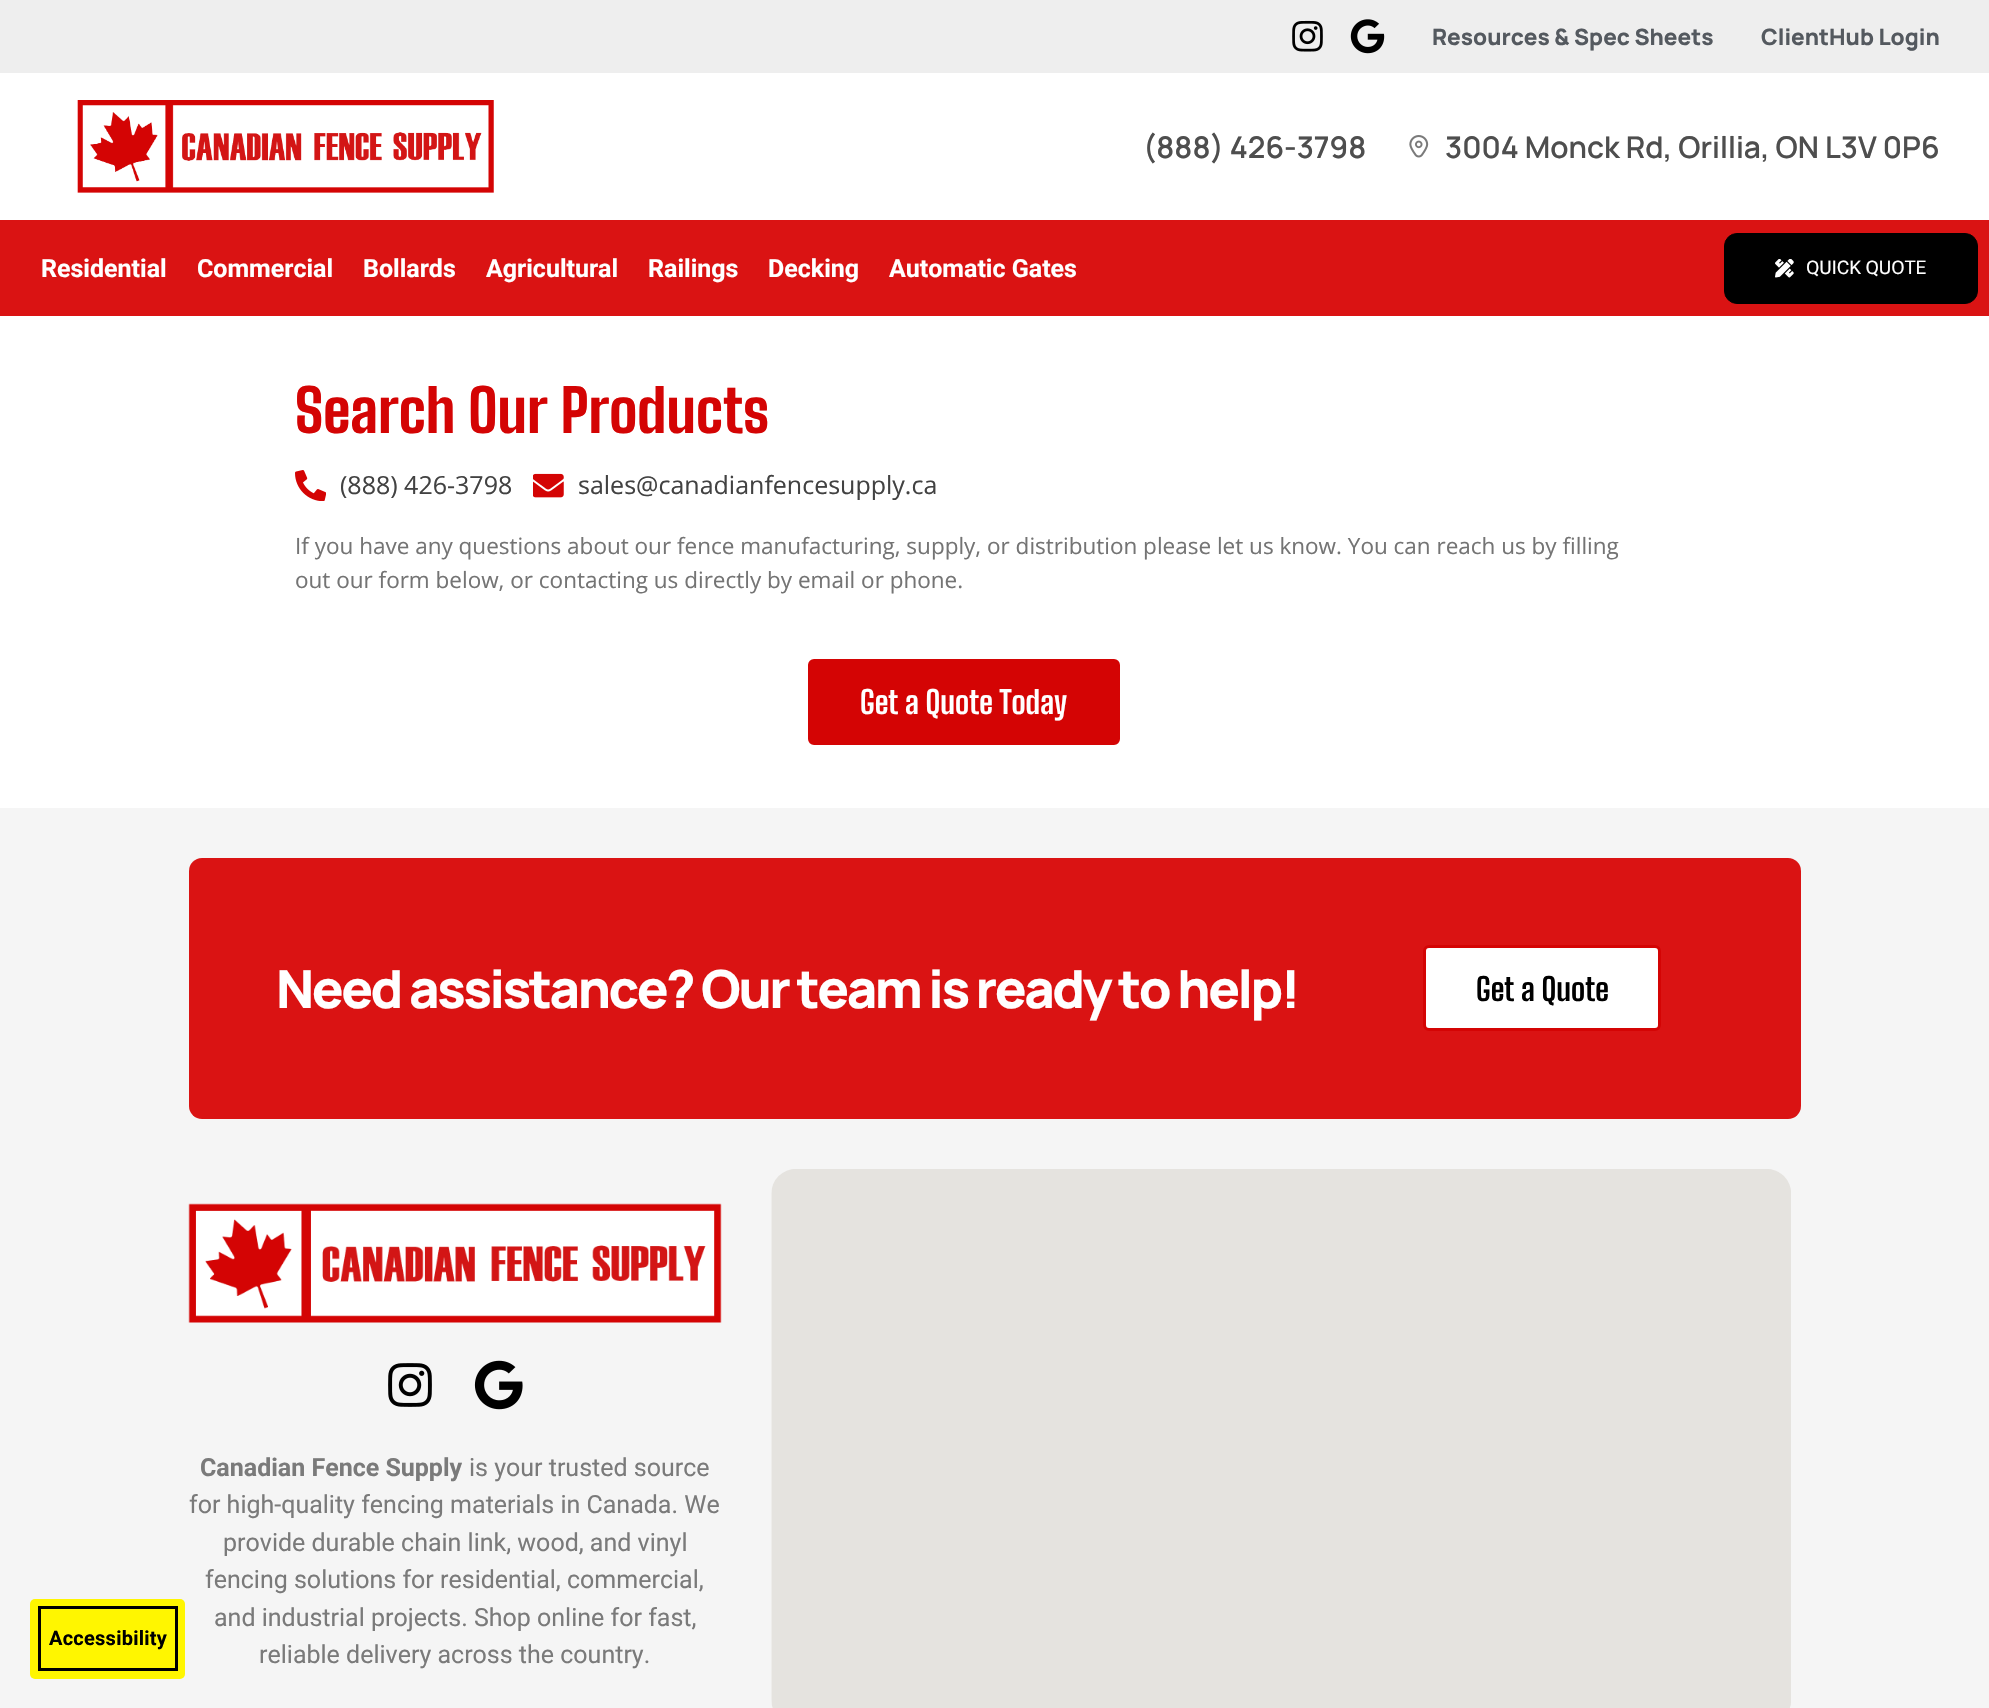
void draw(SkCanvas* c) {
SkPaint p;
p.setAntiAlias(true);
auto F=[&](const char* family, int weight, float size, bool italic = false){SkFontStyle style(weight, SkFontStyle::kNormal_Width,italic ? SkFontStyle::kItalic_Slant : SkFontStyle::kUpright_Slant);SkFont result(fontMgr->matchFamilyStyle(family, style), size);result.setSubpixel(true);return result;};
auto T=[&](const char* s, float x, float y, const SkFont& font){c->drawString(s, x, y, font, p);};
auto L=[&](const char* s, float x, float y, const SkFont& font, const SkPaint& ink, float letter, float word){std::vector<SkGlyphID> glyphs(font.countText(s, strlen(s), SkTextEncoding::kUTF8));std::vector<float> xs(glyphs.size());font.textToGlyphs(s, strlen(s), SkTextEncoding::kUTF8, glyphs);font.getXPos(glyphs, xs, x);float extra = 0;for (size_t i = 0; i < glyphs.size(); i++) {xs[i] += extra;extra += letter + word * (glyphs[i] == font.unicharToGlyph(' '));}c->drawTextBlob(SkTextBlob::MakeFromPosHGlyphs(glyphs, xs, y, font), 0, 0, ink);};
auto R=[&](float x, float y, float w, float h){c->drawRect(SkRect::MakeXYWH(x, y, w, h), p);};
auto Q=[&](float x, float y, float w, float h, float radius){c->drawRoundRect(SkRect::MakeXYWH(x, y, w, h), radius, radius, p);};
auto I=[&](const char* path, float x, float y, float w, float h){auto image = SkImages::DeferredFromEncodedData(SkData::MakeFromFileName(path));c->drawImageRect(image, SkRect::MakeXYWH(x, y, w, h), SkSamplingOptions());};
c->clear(0xffffffff);
p.setColor(0xffeeeeee);
R(0,0,1989,73);
I("1.png",1292,20,31,32);
I("2.png",1350,19,35,35);
auto f1 = F("Manrope",800,22.5);
p.setColor(0xff54595f);
T("Resources & Spec Sheets",1432,45,f1);
T("ClientHub Login",1761,45,f1);
I("3.png",77,100,417,93);
auto f2 = F("Manrope",600,30);
p.setColor(0xff4e4e4e);
T("(888) 426-3798",1143,158,f2);
I("4.png",1409,135,20,23);
T("3004 Monck Rd, Orillia, ON L3V 0P6",1445,158,f2);
p.setColor(0xffda1313);
R(0,220,1989,96);
auto f3 = F("Roboto",700,25);
p.setColor(0xffffffff);
T("Residential",41,277,f3);
T("Commercial",197,277,f3);
T("Bollards",363,277,f3);
T("Agricultural",486,277,f3);
T("Railings",648,277,f3);
T("Decking",768,277,f3);
T("Automatic Gates",889,277,f3);
p.setColor(0xff000000);
c->drawRoundRect(SkRect::MakeXYWH(1724.5,233.5,253,70),12.5,12.5,p);
p.setStroke(true);
p.setStrokeWidth(1);
c->drawRoundRect(SkRect::MakeXYWH(1724.5,233.5,253,70),12.5,12.5,p);
I("5.png",1775,259,19,19);
auto f4 = F("Roboto Flex",400,18.75);
p.setStroke(false);
p.setColor(0xffffffff);
T("QUICK QUOTE",1806,274,f4);
auto f5 = F("Big Shoulders Text",800,58.75);
p.setColor(0xffd40404);
T("Search Our Products",295,433,f5);
I("6.png",295,470,31,31);
auto f6 = F("Open Sans",400,25);
p.setColor(0xff424242);
T("(888) 426-3798",340,494,f6);
I("7.png",533,473,31,25);
T("sales@canadianfencesupply.ca",578,494,f6);
auto f7 = F("Open Sans",400,22.5);
p.setColor(0xff747474);
T("If you have any questions about our fence manufacturing, supply, or distribution please let us know. You can reach us by filling",295,554,f7);
T("out our form below, or contacting us directly by email or phone.",295,588,f7);
p.setColor(0xffd40404);
c->drawRoundRect(SkRect::MakeXYWH(809.5,660.5,309,83),4.5,4.5,p);
p.setStroke(true);
p.setStrokeWidth(3);
c->drawRoundRect(SkRect::MakeXYWH(809.5,660.5,309,83),4.5,4.5,p);
auto f8 = F("Big Shoulders Text",700,31.25);
p.setStroke(false);
p.setColor(0xffffffff);
T("Get a Quote Today",860,714,f8);
p.setColor(0xfff5f5f5);
R(0,808,1989,900);
p.setColor(0xfffff600);
Q(30,1599,155,80,5);
p.setStroke(true);
p.setColor(0xff000000);
c->drawRect(SkRect::MakeXYWH(39.5,1607.5,137,62),p);
auto f9 = F("Roboto",700,20);
p.setStroke(false);
L("Accessibility",49,1645,f9,p,.25,0);
p.setColor(0xffda1313);
Q(189,858,1612,261,13);
auto f10 = F("Manrope",800,52.5);
p.setColor(0xffffffff);
L("Need assistance? Our team is ready to help!",276,1008,f10,p,-2.5,0);
c->drawRoundRect(SkRect::MakeXYWH(1424.5,946.5,235,83),4.5,4.5,p);
p.setStroke(true);
p.setColor(0xffd40404);
c->drawRoundRect(SkRect::MakeXYWH(1424.5,946.5,235,83),4.5,4.5,p);
p.setStroke(false);
p.setColor(0xff000000);
T("Get a Quote",1476,1001,f8);
I("8.png",188,1203,534,120);
I("9.png",388,1363,44,44);
I("10.png",474,1360,49,50);
p.setColor(0xff7a7a7a);
T("Canadian Fence Supply",200,1476,f3);
auto f11 = F("Roboto",400,25);
T("is your trusted source",469,1476,f11);
T("for high-quality fencing materials in Canada. We",189,1513,f11);
T("provide durable chain link, wood, and vinyl",223,1551,f11);
T("fencing solutions for residential, commercial,",205,1588,f11);
T("and industrial projects. Shop online for fast,",214,1626,f11);
T("reliable delivery across the country.",259,1663,f11);
I("11.png",771,1169,1020,539);
}
